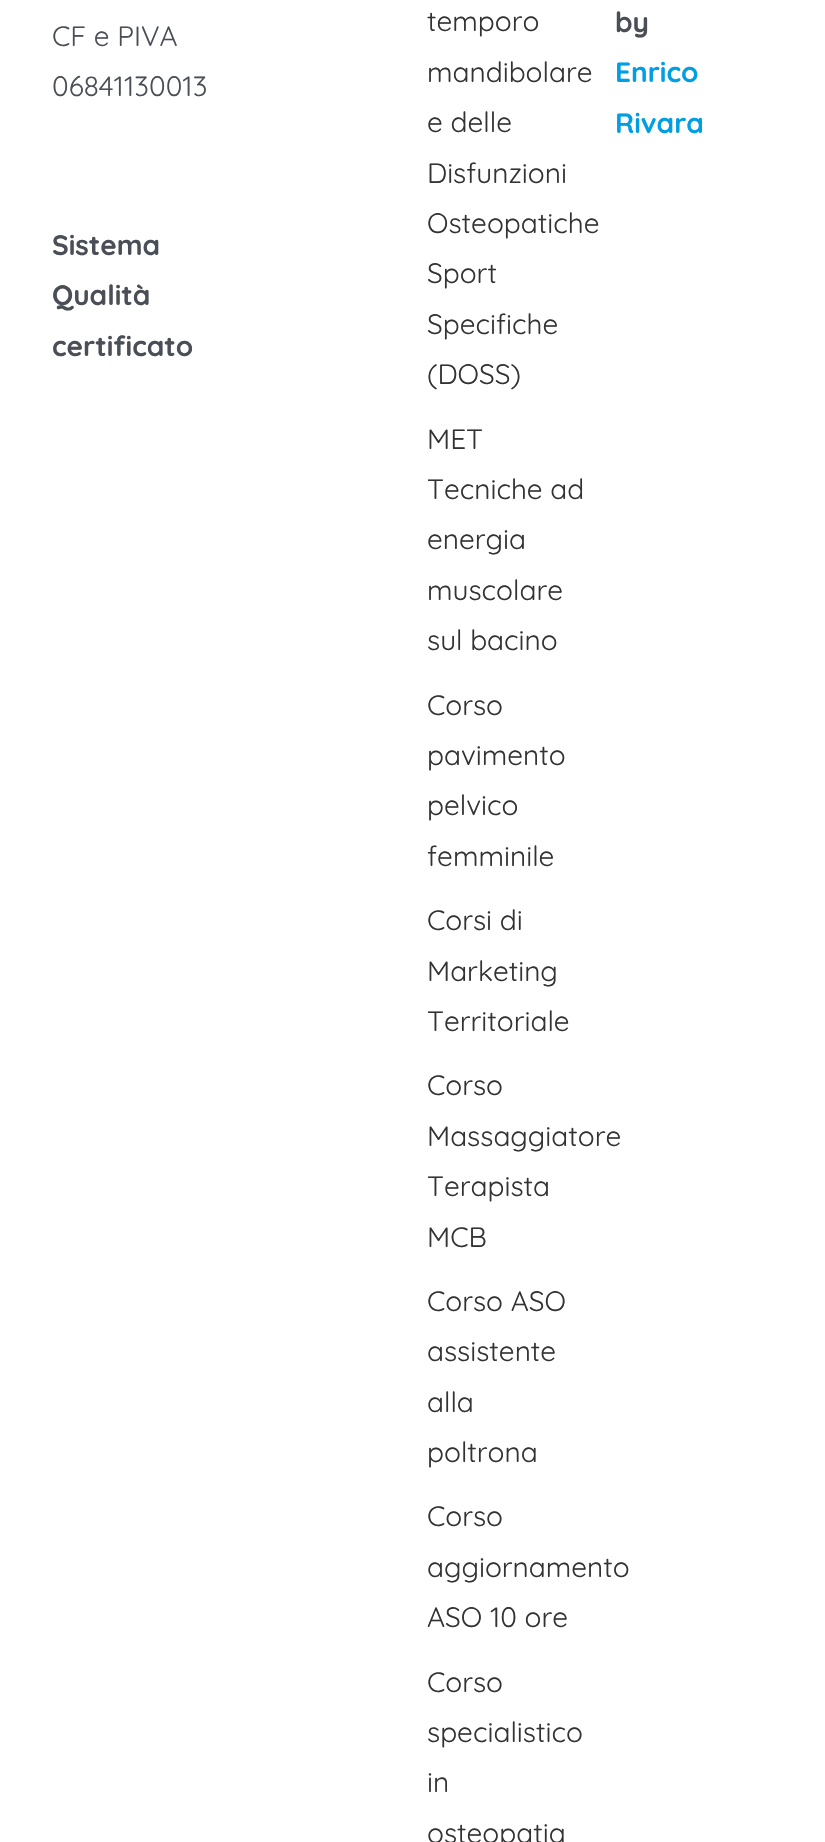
void draw(SkCanvas* c) {
SkPaint p;
p.setAntiAlias(true);
auto F=[&](const char* family, int weight, float size, bool italic = false){SkFontStyle style(weight, SkFontStyle::kNormal_Width,italic ? SkFontStyle::kItalic_Slant : SkFontStyle::kUpright_Slant);SkFont result(fontMgr->matchFamilyStyle(family, style), size);result.setSubpixel(true);return result;};
auto T=[&](const char* s, float x, float y, const SkFont& font){c->drawString(s, x, y, font, p);};
c->clear(0xffffffff);
auto f1 = F("Quicksand",400,28);
p.setColor(0xff4a4e57);
T("CF e PIVA",52,46,f1);
T("06841130013",52,96,f1);
auto f2 = F("Quicksand",700,28);
T("Sistema",52,255,f2);
T("Qualità",52,305,f2);
T("certificato",52,356,f2);
p.setColor(0xff333333);
T("temporo",427,31,f1);
T("mandibolare",427,82,f1);
T("e delle",427,132,f1);
T("Disfunzioni",427,183,f1);
T("Osteopatiche",427,233,f1);
T("Sport",427,283,f1);
T("Specifiche",427,334,f1);
T("(DOSS)",427,384,f1);
T("MET",427,449,f1);
T("Tecniche ad",427,499,f1);
T("energia",427,549,f1);
T("muscolare",427,600,f1);
T("sul bacino",427,650,f1);
T("Corso",427,715,f1);
T("pavimento",427,765,f1);
T("pelvico",427,815,f1);
T("femminile",427,866,f1);
T("Corsi di",427,930,f1);
T("Marketing",427,981,f1);
T("Territoriale",427,1031,f1);
T("Corso",427,1095,f1);
T("Massaggiatore",427,1146,f1);
T("Terapista",427,1196,f1);
T("MCB",427,1247,f1);
T("Corso ASO",427,1311,f1);
T("assistente",427,1361,f1);
T("alla",427,1412,f1);
T("poltrona",427,1462,f1);
T("Corso",427,1526,f1);
T("aggiornamento",427,1577,f1);
T("ASO 10 ore",427,1627,f1);
T("Corso",427,1692,f1);
T("specialistico",427,1742,f1);
T("in",427,1792,f1);
T("osteopatia",427,1843,f1);
p.setColor(0xff4a4e57);
T("by",615,32,f2);
p.setColor(0xff009fe3);
T("Enrico",615,82,f2);
T("Rivara",615,133,f2);
}
